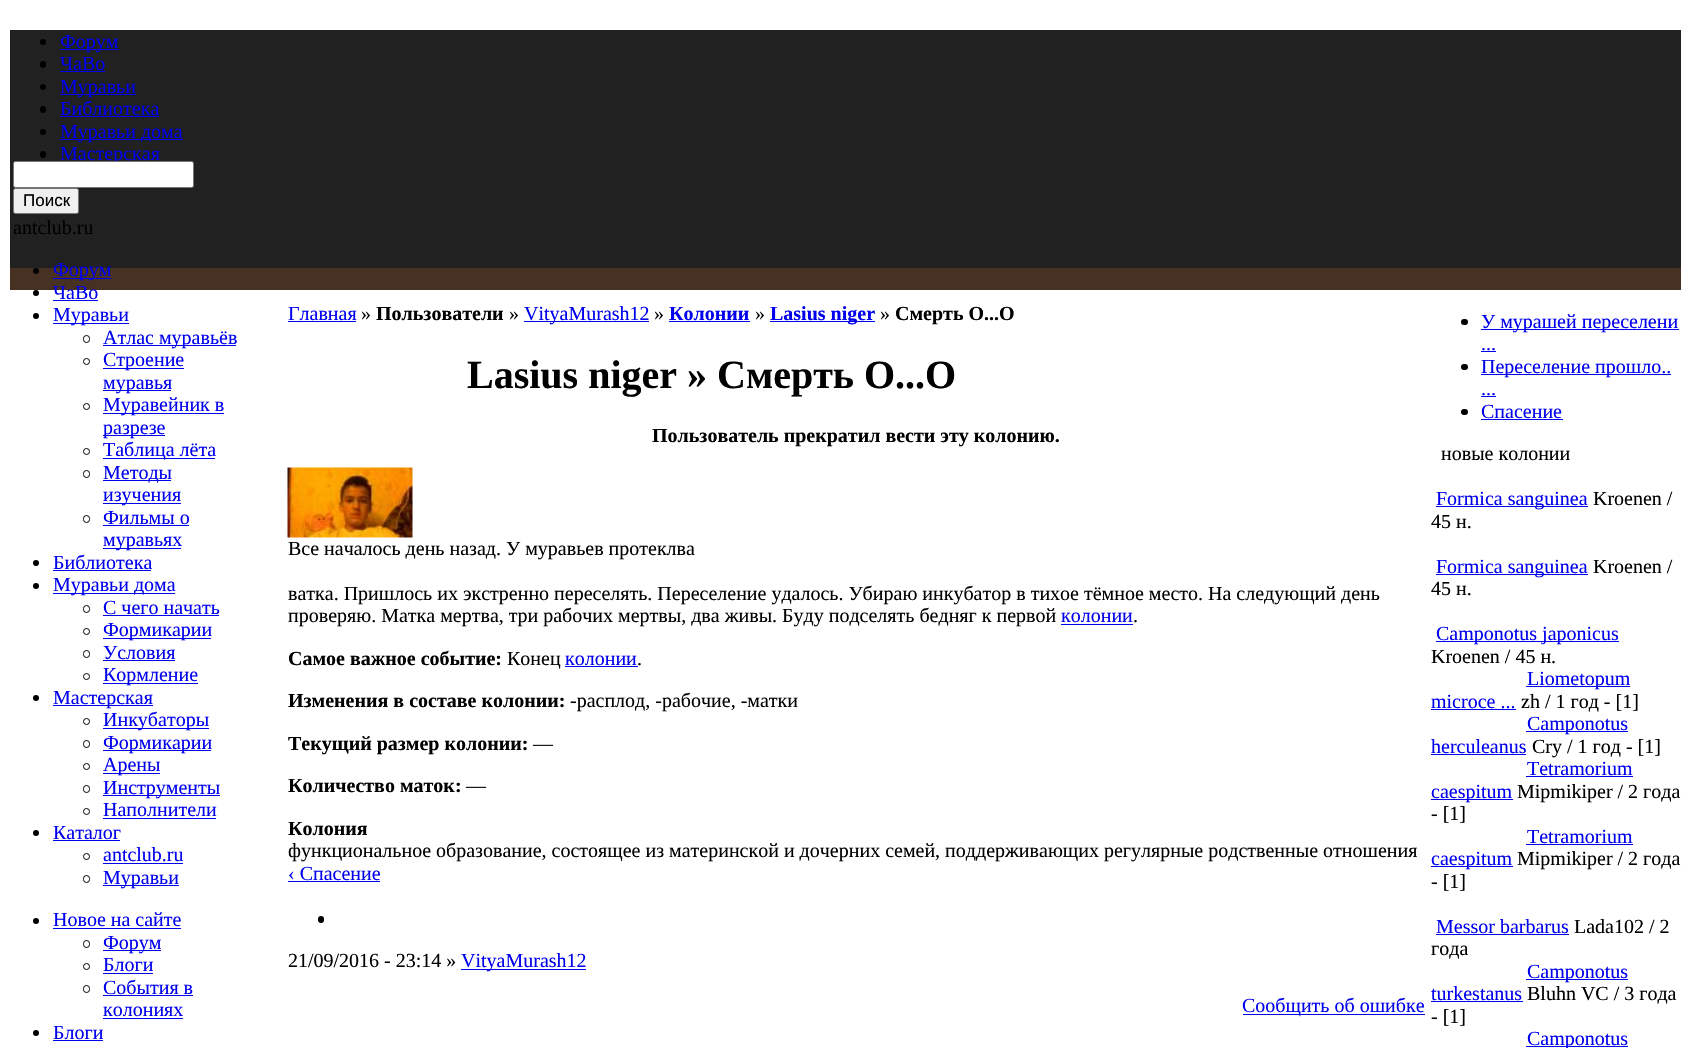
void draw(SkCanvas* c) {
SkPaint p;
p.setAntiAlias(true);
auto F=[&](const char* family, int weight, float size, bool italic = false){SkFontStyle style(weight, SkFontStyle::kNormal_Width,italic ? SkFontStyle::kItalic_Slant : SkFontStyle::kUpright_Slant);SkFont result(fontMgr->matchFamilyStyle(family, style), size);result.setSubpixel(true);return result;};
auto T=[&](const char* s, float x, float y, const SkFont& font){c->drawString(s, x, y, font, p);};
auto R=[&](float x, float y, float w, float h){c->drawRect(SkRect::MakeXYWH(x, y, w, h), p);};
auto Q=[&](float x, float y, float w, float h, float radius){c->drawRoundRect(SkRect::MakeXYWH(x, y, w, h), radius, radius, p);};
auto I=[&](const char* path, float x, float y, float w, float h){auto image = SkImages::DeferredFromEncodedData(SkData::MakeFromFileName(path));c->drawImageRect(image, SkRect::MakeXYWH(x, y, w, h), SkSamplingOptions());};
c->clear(0xffffffff);
p.setColor(0xff212121);
R(10,30,1671,238);
p.setColor(0xff000000);
c->drawCircle(43,42,3,p);
p.setColor(0xff0000ee);
R(60,49,59,1);
auto f1 = F("Liberation Serif",400,20);
T("Форум",60,48,f1);
p.setColor(0xff000000);
Q(40,61,6,7,3);
p.setColor(0xff0000ee);
T("ЧаВо",60,70,f1);
R(60,71,45,1);
p.setColor(0xff000000);
c->drawCircle(43,87,3,p);
p.setColor(0xff0000ee);
R(60,94,76,1);
T("Муравьи",60,93,f1);
p.setColor(0xff000000);
Q(40,106,6,7,3);
p.setColor(0xff0000ee);
T("Библиотека",60,115,f1);
R(60,116,99,1);
p.setColor(0xff000000);
c->drawCircle(43,132,3,p);
p.setColor(0xff0000ee);
R(60,139,123,1);
T("Муравьи дома",60,138,f1);
p.setColor(0xff000000);
Q(40,151,6,7,3);
p.setColor(0xff0000ee);
T("Мастерская",60,160,f1);
p.setColor(0xff473122);
R(10,268,1671,22);
p.setColor(0xff000000);
T("antclub.ru",13,234,f1);
c->drawCircle(36,271,3,p);
p.setColor(0xff0000ee);
R(53,278,58,1);
T("Форум",53,276,f1);
p.setColor(0xff000000);
c->drawCircle(36,293,3,p);
p.setColor(0xff0000ee);
T("ЧаВо",53,299,f1);
R(53,300,45,1);
p.setColor(0xff000000);
c->drawCircle(36,316,3,p);
p.setColor(0xff0000ee);
R(53,323,76,1);
T("Муравьи",53,321,f1);
p.setStroke(true);
p.setStrokeWidth(1);
p.setColor(0xff000000);
c->drawRoundRect(SkRect::MakeXYWH(83.5,335.5,6,7),3,3,p);
p.setStroke(false);
p.setColor(0xff0000ee);
R(103,345,133,1);
T("Атлас муравьёв",103,344,f1);
p.setStroke(true);
p.setColor(0xff000000);
c->drawCircle(86.5,361.5,3,p);
p.setStroke(false);
p.setColor(0xff0000ee);
R(103,368,81,1);
T("Строение",103,366,f1);
R(103,390,68,1);
T("муравья",103,389,f1);
p.setStroke(true);
p.setColor(0xff000000);
c->drawCircle(86.5,406.5,3,p);
p.setStroke(false);
p.setColor(0xff0000ee);
R(103,413,121,1);
T("Муравейник в",103,411,f1);
R(103,435,62,1);
T("разрезе",103,434,f1);
p.setStroke(true);
p.setColor(0xff000000);
c->drawCircle(86.5,451.5,3,p);
p.setStroke(false);
p.setColor(0xff0000ee);
R(103,458,112,1);
T("Таблица лёта",103,456,f1);
p.setStroke(true);
p.setColor(0xff000000);
c->drawRoundRect(SkRect::MakeXYWH(83.5,470.5,6,7),3,3,p);
p.setStroke(false);
p.setColor(0xff0000ee);
R(103,480,68,1);
T("Методы",103,479,f1);
R(103,503,78,1);
T("изучения",103,501,f1);
p.setStroke(true);
p.setColor(0xff000000);
c->drawRoundRect(SkRect::MakeXYWH(83.5,515.5,6,7),3,3,p);
p.setStroke(false);
p.setColor(0xff0000ee);
T("Фильмы о",103,524,f1);
R(103,525,86,1);
R(103,548,78,1);
T("муравьях",103,546,f1);
p.setColor(0xff000000);
c->drawCircle(36,563,3,p);
p.setColor(0xff0000ee);
T("Библиотека",53,569,f1);
R(53,570,98,1);
p.setColor(0xff000000);
c->drawCircle(36,586,3,p);
p.setColor(0xff0000ee);
R(53,593,122,1);
T("Муравьи дома",53,591,f1);
p.setStroke(true);
p.setColor(0xff000000);
c->drawRoundRect(SkRect::MakeXYWH(83.5,605.5,6,7),3,3,p);
p.setStroke(false);
p.setColor(0xff0000ee);
T("С чего начать",103,614,f1);
R(103,615,116,1);
p.setStroke(true);
p.setColor(0xff000000);
c->drawCircle(86.5,631.5,3,p);
p.setStroke(false);
p.setColor(0xff0000ee);
R(103,638,108,1);
T("Формикарии",103,636,f1);
p.setStroke(true);
p.setColor(0xff000000);
c->drawRoundRect(SkRect::MakeXYWH(83.5,650.5,6,7),3,3,p);
p.setStroke(false);
p.setColor(0xff0000ee);
T("Условия",103,659,f1);
R(103,660,72,1);
p.setStroke(true);
p.setColor(0xff000000);
c->drawCircle(86.5,676.5,3,p);
p.setStroke(false);
p.setColor(0xff0000ee);
R(103,683,95,1);
T("Кормление",103,681,f1);
p.setColor(0xff000000);
c->drawCircle(36,698,3,p);
p.setColor(0xff0000ee);
R(53,705,100,1);
T("Мастерская",53,704,f1);
p.setStroke(true);
p.setColor(0xff000000);
c->drawCircle(86.5,721.5,3,p);
p.setStroke(false);
p.setColor(0xff0000ee);
R(103,728,106,1);
T("Инкубаторы",103,726,f1);
p.setStroke(true);
p.setColor(0xff000000);
c->drawRoundRect(SkRect::MakeXYWH(83.5,740.5,6,7),3,3,p);
p.setStroke(false);
p.setColor(0xff0000ee);
R(103,750,108,1);
T("Формикарии",103,749,f1);
p.setStroke(true);
p.setColor(0xff000000);
c->drawCircle(86.5,766.5,3,p);
p.setStroke(false);
p.setColor(0xff0000ee);
R(103,773,57,1);
T("Арены",103,771,f1);
p.setStroke(true);
p.setColor(0xff000000);
c->drawRoundRect(SkRect::MakeXYWH(83.5,785.5,6,7),3,3,p);
p.setStroke(false);
p.setColor(0xff0000ee);
R(103,795,117,1);
T("Инструменты",103,794,f1);
p.setStroke(true);
p.setColor(0xff000000);
c->drawCircle(86.5,811.5,3,p);
p.setStroke(false);
p.setColor(0xff0000ee);
T("Наполнители",103,816,f1);
R(103,818,113,1);
p.setColor(0xff000000);
c->drawCircle(36,833,3,p);
p.setColor(0xff0000ee);
T("Каталог",53,839,f1);
R(53,840,67,1);
p.setStroke(true);
p.setColor(0xff000000);
c->drawCircle(86.5,856.5,3,p);
p.setStroke(false);
p.setColor(0xff0000ee);
T("antclub.ru",103,861,f1);
R(103,863,80,1);
p.setStroke(true);
p.setColor(0xff000000);
c->drawRoundRect(SkRect::MakeXYWH(83.5,875.5,6,7),3,3,p);
p.setStroke(false);
p.setColor(0xff0000ee);
R(103,885,76,1);
T("Муравьи",103,884,f1);
p.setColor(0xff000000);
c->drawCircle(36,921,3,p);
p.setColor(0xff0000ee);
T("Новое на сайте",53,926,f1);
R(53,928,128,1);
p.setStroke(true);
p.setColor(0xff000000);
c->drawRoundRect(SkRect::MakeXYWH(83.5,940.5,6,7),3,3,p);
p.setStroke(false);
p.setColor(0xff0000ee);
R(103,950,58,1);
T("Форум",103,949,f1);
p.setStroke(true);
p.setColor(0xff000000);
c->drawCircle(86.5,966.5,3,p);
p.setStroke(false);
p.setColor(0xff0000ee);
T("Блоги",103,971,f1);
R(103,973,50,1);
p.setStroke(true);
p.setColor(0xff000000);
c->drawRoundRect(SkRect::MakeXYWH(83.5,985.5,6,7),3,3,p);
p.setStroke(false);
p.setColor(0xff0000ee);
T("События в",103,994,f1);
R(103,995,90,1);
T("колониях",103,1016,f1);
R(103,1018,80,1);
p.setColor(0xff000000);
c->drawCircle(36,1033,3,p);
p.setColor(0xff0000ee);
T("Блоги",53,1039,f1);
R(53,1040,50,1);
T("Главная",288,320,f1);
R(288,321,68,1);
p.setColor(0xff000000);
T("»",361,320,f1);
auto f2 = F("Liberation Serif",700,20);
T("Пользователи",376,320,f2);
T("»",509,320,f1);
p.setColor(0xff0000ee);
R(524,321,125,1);
T("VityaMurash12",524,320,f1);
p.setColor(0xff000000);
T("»",654,320,f1);
p.setColor(0xff0000ee);
T("Колонии",669,320,f2);
R(669,321,81,1);
p.setColor(0xff000000);
T("»",755,320,f1);
p.setColor(0xff0000ee);
R(770,321,105,1);
T("Lasius niger",770,320,f2);
p.setColor(0xff000000);
T("»",880,320,f1);
T("Смерть О...О",895,320,f2);
auto f3 = F("Liberation Serif",700,40);
T("Lasius niger » Смерть О...О",467,388,f3);
T("Пользователь прекратил вести эту колонию.",652,442,f2);
I("1.png",287,467,126,71);
T("Все началось день назад. У муравьев протеклва",288,555,f1);
T("ватка. Пришлось их экстренно переселять. Переселение удалось. Убираю инкубатор в тихое тёмное место. На следующий день",288,600,f1);
T("проверяю. Матка мертва, три рабочих мертвы, два живы. Буду подселять бедняг к первой",288,622,f1);
p.setColor(0xff0000ee);
T("колонии",1061,622,f1);
R(1061,624,72,1);
p.setColor(0xff000000);
T(".",1133,622,f1);
T("Самое важное событие:",288,665,f2);
T("Конец",507,665,f1);
p.setColor(0xff0000ee);
T("колонии",565,665,f1);
R(565,666,73,1);
p.setColor(0xff000000);
T(".",637,665,f1);
T("Изменения в составе кoлонии:",288,707,f2);
T("-расплод, -рабочие, -матки",570,707,f1);
T("Текущий размер кoлонии:",288,750,f2);
T("—",533,750,f1);
T("Количество маток:",288,792,f2);
T("—",466,792,f1);
T("Колония",288,835,f2);
T("функциональное образование, состоящее из материнской и дочерних семей, поддерживающих регулярные родственные отношения",288,857,f1);
p.setColor(0xff0000ee);
T("‹ Спасение",288,880,f1);
R(288,881,92,1);
p.setColor(0xff000000);
Q(318,916,6,7,3);
T("21/09/2016 - 23:14 »",288,967,f1);
p.setColor(0xff0000ee);
R(461,969,125,1);
T("VityaMurash12",461,967,f1);
R(1243,1014,182,1);
T("Сообщить об ошибке",1242,1012,f1);
p.setColor(0xff000000);
Q(1461,319,7,6,3);
p.setColor(0xff0000ee);
R(1481,329,198,1);
T("У мурашей переселени",1481,328,f1);
T("...",1481,350,f1);
R(1481,351,15,1);
p.setColor(0xff000000);
Q(1461,364,7,6,3);
p.setColor(0xff0000ee);
R(1481,374,190,1);
T("Переселение прошло..",1481,373,f1);
T("...",1481,395,f1);
R(1481,396,15,1);
p.setColor(0xff000000);
Q(1461,409,7,6,3);
p.setColor(0xff0000ee);
T("Спасение",1481,418,f1);
R(1481,419,82,1);
p.setColor(0xff000000);
T("новые колонии",1441,460,f1);
p.setColor(0xff0000ee);
R(1436,506,152,1);
T("Formica sanguinea",1436,505,f1);
p.setColor(0xff000000);
T("Kroenen /",1593,505,f1);
T("45 н.",1431,528,f1);
p.setColor(0xff0000ee);
R(1436,574,152,1);
T("Formica sanguinea",1436,573,f1);
p.setColor(0xff000000);
T("Kroenen /",1593,573,f1);
T("45 н.",1431,595,f1);
p.setColor(0xff0000ee);
R(1436,641,183,1);
T("Camponotus japonicus",1436,640,f1);
p.setColor(0xff000000);
T("Kroenen / 45 н.",1431,663,f1);
p.setColor(0xff0000ee);
R(1526,686,104,1);
T("Liometopum",1527,685,f1);
T("microce ...",1431,708,f1);
R(1431,709,85,1);
p.setColor(0xff000000);
T("zh / 1 год - [1]",1521,708,f1);
p.setColor(0xff0000ee);
R(1526,731,102,1);
T("Camponotus",1527,730,f1);
T("herculeanus",1431,753,f1);
R(1431,754,95,1);
p.setColor(0xff000000);
T("Cry / 1 год - [1]",1532,753,f1);
p.setColor(0xff0000ee);
T("Tetramorium",1527,775,f1);
R(1526,776,107,1);
R(1431,799,82,1);
T("caespitum",1431,798,f1);
p.setColor(0xff000000);
T("Mipmikiper / 2 года",1517,798,f1);
T("- [1]",1431,820,f1);
p.setColor(0xff0000ee);
T("Tetramorium",1527,843,f1);
R(1526,844,107,1);
R(1431,866,82,1);
T("caespitum",1431,865,f1);
p.setColor(0xff000000);
T("Mipmikiper / 2 года",1517,865,f1);
T("- [1]",1431,888,f1);
p.setColor(0xff0000ee);
T("Messor barbarus",1436,933,f1);
R(1436,934,133,1);
p.setColor(0xff000000);
T("Lada102 / 2",1574,933,f1);
T("года",1431,955,f1);
p.setColor(0xff0000ee);
R(1526,979,102,1);
T("Camponotus",1527,978,f1);
T("turkestanus",1431,1000,f1);
R(1431,1001,92,1);
p.setColor(0xff000000);
T("Bluhn VC / 3 года",1527,1000,f1);
T("- [1]",1431,1023,f1);
p.setColor(0xff0000ee);
R(1526,1046,102,1);
T("Camponotus",1527,1045,f1);
p.setColor(0xffffffff);
c->drawRoundRect(SkRect::MakeXYWH(13.5,161.5,180,26),2,2,p);
p.setStroke(true);
p.setColor(0xff767676);
c->drawRoundRect(SkRect::MakeXYWH(13.5,161.5,180,26),2,2,p);
p.setStroke(false);
p.setColor(0xffefefef);
c->drawRoundRect(SkRect::MakeXYWH(13.5,188.5,65,25),2,2,p);
p.setStroke(true);
p.setColor(0xff767676);
c->drawRoundRect(SkRect::MakeXYWH(13.5,188.5,65,25),2,2,p);
auto f4 = F("Liberation Sans",400,17);
p.setStroke(false);
p.setColor(0xff000000);
T("Поиск",23,206,f4);
}
